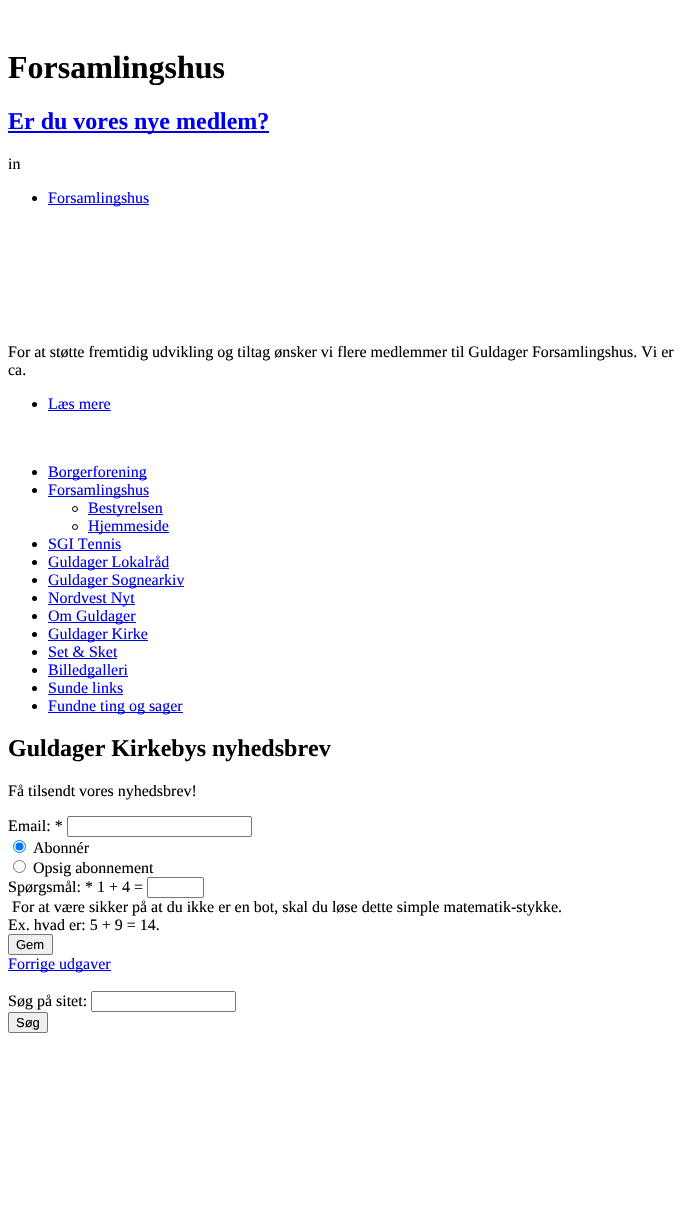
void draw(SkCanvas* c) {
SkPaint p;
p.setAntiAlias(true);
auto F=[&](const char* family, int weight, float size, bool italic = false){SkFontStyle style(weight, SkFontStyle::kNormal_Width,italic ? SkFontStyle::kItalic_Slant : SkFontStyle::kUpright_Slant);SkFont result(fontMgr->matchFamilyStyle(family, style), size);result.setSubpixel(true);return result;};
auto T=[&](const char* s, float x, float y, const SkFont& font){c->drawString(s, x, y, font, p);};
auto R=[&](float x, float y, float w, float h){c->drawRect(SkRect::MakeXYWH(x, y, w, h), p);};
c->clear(0xffffffff);
auto f1 = F("Liberation Serif",700,32);
p.setColor(0xff000000);
T("Forsamlingshus",8,78,f1);
p.setColor(0xff0000ee);
R(8,131,261,2);
auto f2 = F("Liberation Serif",700,24);
T("Er du vores nye medlem?",8,129,f2);
auto f3 = F("Liberation Serif",400,16);
p.setColor(0xff000000);
T("in",8,169,f3);
c->drawCircle(34.5,198.5,2.5,p);
p.setColor(0xff0000ee);
R(48,204,101,1);
T("Forsamlingshus",48,203,f3);
p.setColor(0xff000000);
T("For at støtte fremtidig udvikling og tiltag ønsker vi flere medlemmer til Guldager Forsamlingshus. Vi er",8,357,f3);
T("ca.",8,375,f3);
c->drawCircle(34.5,404.5,2.5,p);
p.setColor(0xff0000ee);
T("Læs mere",48,409,f3);
R(48,410,63,1);
p.setColor(0xff000000);
c->drawCircle(34.5,472.5,2.5,p);
p.setColor(0xff0000ee);
R(48,478,99,1);
T("Borgerforening",48,477,f3);
p.setColor(0xff000000);
c->drawCircle(34.5,490.5,2.5,p);
p.setColor(0xff0000ee);
R(48,496,101,1);
T("Forsamlingshus",48,495,f3);
p.setStroke(true);
p.setStrokeWidth(1);
p.setColor(0xff000000);
c->drawCircle(75,509,2.5,p);
p.setStroke(false);
p.setColor(0xff0000ee);
R(88,514,75,1);
T("Bestyrelsen",88,513,f3);
p.setStroke(true);
p.setColor(0xff000000);
c->drawCircle(75,527,2.5,p);
p.setStroke(false);
p.setColor(0xff0000ee);
R(88,532,81,1);
T("Hjemmeside",88,531,f3);
p.setColor(0xff000000);
c->drawCircle(34.5,544.5,2.5,p);
p.setColor(0xff0000ee);
T("SGI Tennis",48,549,f3);
R(48,550,73,1);
p.setColor(0xff000000);
c->drawCircle(34.5,562.5,2.5,p);
p.setColor(0xff0000ee);
R(48,568,121,1);
T("Guldager Lokalråd",48,567,f3);
p.setColor(0xff000000);
c->drawCircle(34.5,580.5,2.5,p);
p.setColor(0xff0000ee);
R(48,586,136,1);
T("Guldager Sognearkiv",48,585,f3);
p.setColor(0xff000000);
c->drawCircle(34.5,598.5,2.5,p);
p.setColor(0xff0000ee);
R(48,604,87,1);
T("Nordvest Nyt",48,603,f3);
p.setColor(0xff000000);
c->drawCircle(34.5,616.5,2.5,p);
p.setColor(0xff0000ee);
R(48,622,88,1);
T("Om Guldager",48,621,f3);
p.setColor(0xff000000);
c->drawCircle(34.5,634.5,2.5,p);
p.setColor(0xff0000ee);
R(48,640,100,1);
T("Guldager Kirke",48,639,f3);
p.setColor(0xff000000);
c->drawCircle(34.5,652.5,2.5,p);
p.setColor(0xff0000ee);
T("Set & Sket",48,657,f3);
R(48,658,69,1);
p.setColor(0xff000000);
c->drawCircle(34.5,670.5,2.5,p);
p.setColor(0xff0000ee);
R(48,676,80,1);
T("Billedgalleri",48,675,f3);
p.setColor(0xff000000);
c->drawCircle(34.5,688.5,2.5,p);
p.setColor(0xff0000ee);
T("Sunde links",48,693,f3);
R(48,694,75,1);
p.setColor(0xff000000);
c->drawCircle(34.5,706.5,2.5,p);
p.setColor(0xff0000ee);
R(48,712,135,1);
T("Fundne ting og sager",48,711,f3);
p.setColor(0xff000000);
T("Guldager Kirkebys nyhedsbrev",8,756,f2);
T("Få tilsendt vores nyhedsbrev!",8,796,f3);
T("Email: *",8,831,f3);
p.setStroke(true);
p.setColor(0xff767676);
c->drawRoundRect(SkRect::MakeXYWH(67.5,816.5,184,20),1.5,1.5,p);
p.setColor(0xff0075ff);
c->drawCircle(19.5,846.5,6,p);
p.setStroke(false);
c->drawCircle(19.5,846.5,4,p);
p.setColor(0xff000000);
T("Abonnér",33,853,f3);
p.setStroke(true);
p.setColor(0xff767676);
c->drawCircle(19.5,866.5,6,p);
p.setStroke(false);
p.setColor(0xff000000);
T("Opsig abonnement",33,873,f3);
T("Spørgsmål: * 1 + 4 =",8,892,f3);
p.setStroke(true);
p.setColor(0xff767676);
c->drawRoundRect(SkRect::MakeXYWH(147.5,877.5,56,20),1.5,1.5,p);
p.setStroke(false);
p.setColor(0xff000000);
T("For at være sikker på at du ikke er en bot, skal du løse dette simple matematik-stykke.",12,912,f3);
T("Ex. hvad er: 5 + 9 = 14.",8,930,f3);
p.setColor(0xffefefef);
c->drawRoundRect(SkRect::MakeXYWH(8.5,934.5,44,20),1.5,1.5,p);
p.setStroke(true);
p.setColor(0xff767676);
c->drawRoundRect(SkRect::MakeXYWH(8.5,934.5,44,20),1.5,1.5,p);
auto f4 = F("Liberation Sans",400,13);
p.setStroke(false);
p.setColor(0xff000000);
T("Gem",16,949,f4);
p.setColor(0xff0000ee);
R(8,970,103,1);
T("Forrige udgaver",8,969,f3);
p.setColor(0xff000000);
T("Søg på sitet:",8,1006,f3);
p.setStroke(true);
p.setColor(0xff767676);
c->drawRoundRect(SkRect::MakeXYWH(91.5,991.5,144,20),1.5,1.5,p);
p.setStroke(false);
p.setColor(0xffefefef);
c->drawRoundRect(SkRect::MakeXYWH(8.5,1012.5,39,20),1.5,1.5,p);
p.setStroke(true);
p.setColor(0xff767676);
c->drawRoundRect(SkRect::MakeXYWH(8.5,1012.5,39,20),1.5,1.5,p);
p.setStroke(false);
p.setColor(0xff000000);
T("Søg",16,1027,f4);
}
